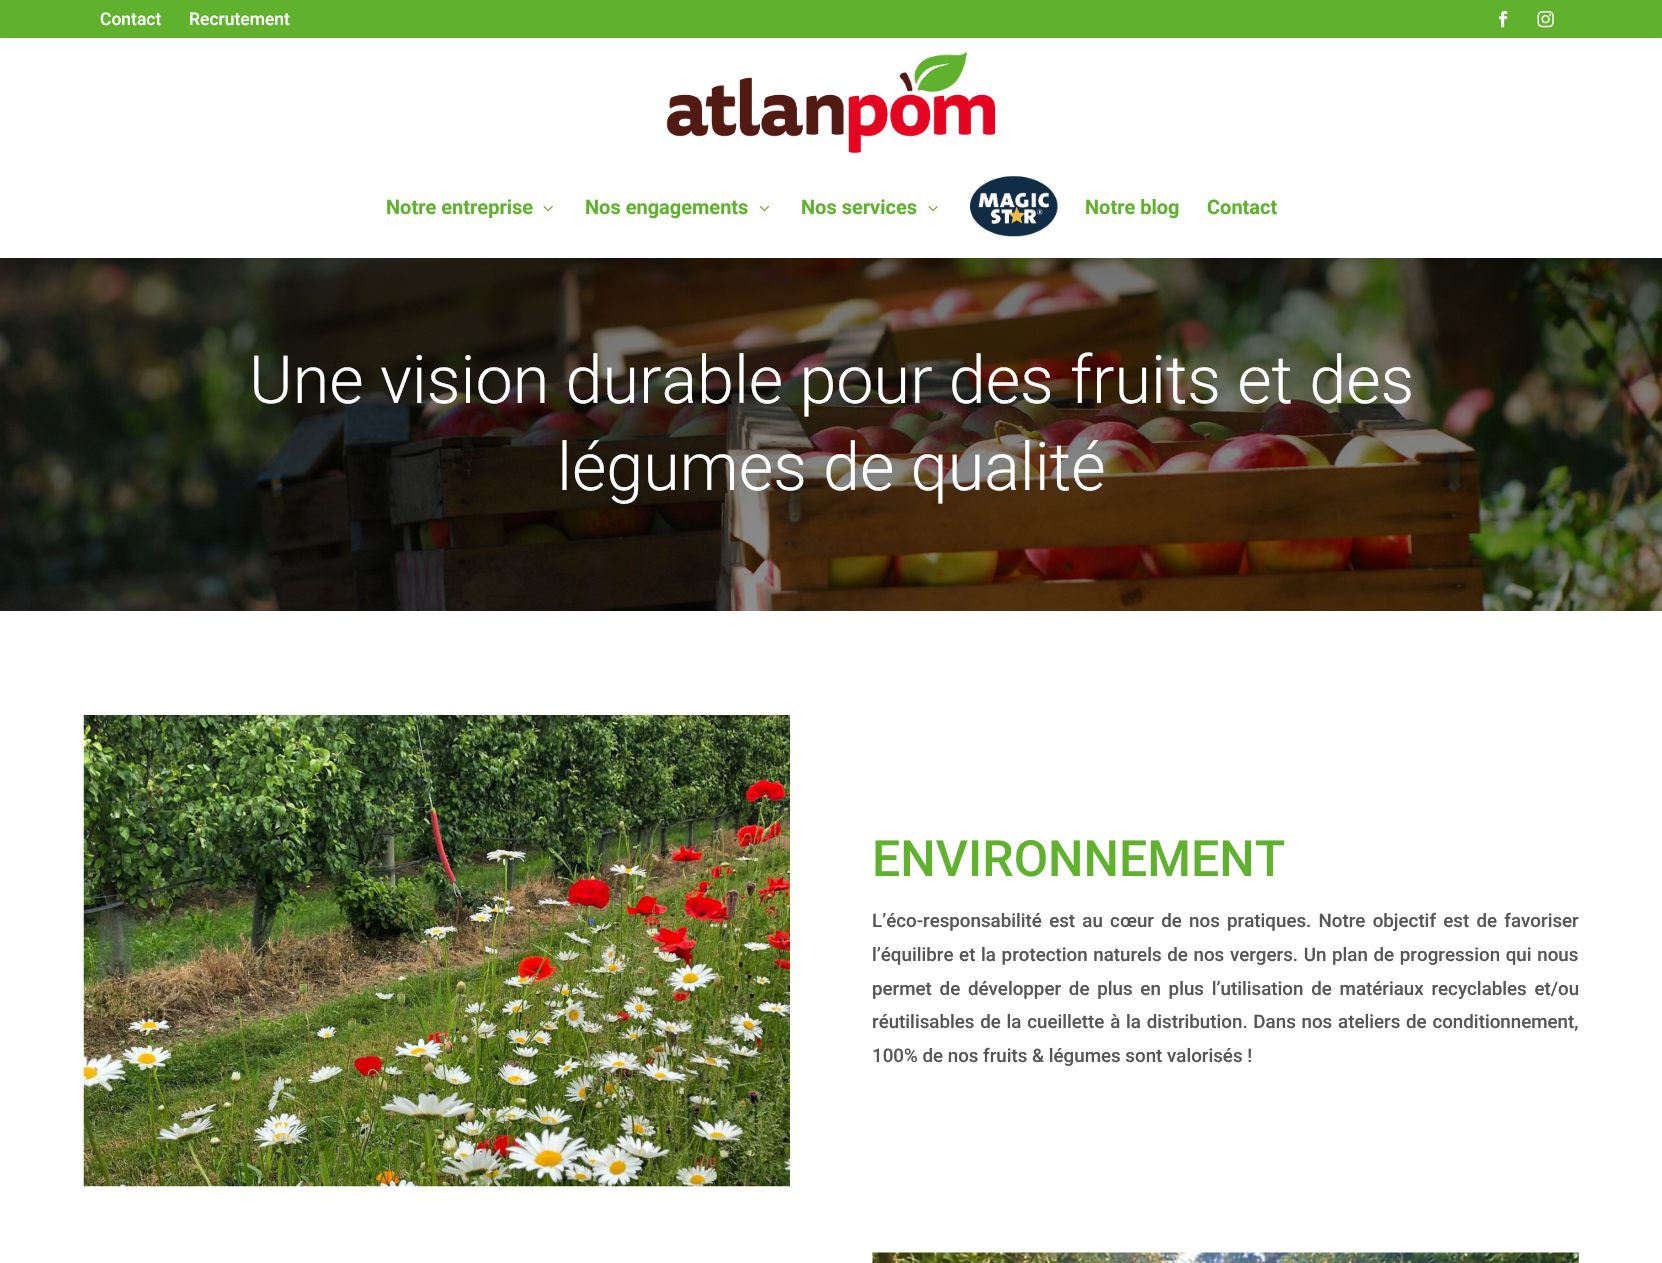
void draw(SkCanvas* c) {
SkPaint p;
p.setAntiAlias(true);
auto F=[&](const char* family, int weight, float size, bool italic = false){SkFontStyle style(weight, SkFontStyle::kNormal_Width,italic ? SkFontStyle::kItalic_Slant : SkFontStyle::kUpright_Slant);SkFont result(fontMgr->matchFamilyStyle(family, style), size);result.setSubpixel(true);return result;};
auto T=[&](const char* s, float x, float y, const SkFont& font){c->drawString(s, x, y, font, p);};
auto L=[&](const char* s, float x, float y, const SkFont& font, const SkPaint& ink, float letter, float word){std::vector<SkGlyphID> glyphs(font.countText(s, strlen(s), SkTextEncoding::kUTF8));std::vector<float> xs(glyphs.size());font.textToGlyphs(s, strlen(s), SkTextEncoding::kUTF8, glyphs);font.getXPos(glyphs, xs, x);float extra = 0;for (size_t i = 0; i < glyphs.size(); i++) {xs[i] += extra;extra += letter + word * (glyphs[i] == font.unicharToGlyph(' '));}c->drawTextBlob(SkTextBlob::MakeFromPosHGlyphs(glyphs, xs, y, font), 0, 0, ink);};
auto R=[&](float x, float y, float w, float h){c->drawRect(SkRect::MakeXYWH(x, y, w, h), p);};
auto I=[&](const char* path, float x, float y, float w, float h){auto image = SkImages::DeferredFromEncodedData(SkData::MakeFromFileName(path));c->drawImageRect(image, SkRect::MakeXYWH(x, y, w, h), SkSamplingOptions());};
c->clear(0xffffffff);
p.setColor(0xff60b22e);
R(0,0,1662,38);
auto f1 = F("Roboto",500,17.5);
p.setColor(0xffffffff);
T("Contact",100,25,f1);
T("Recrutement",189,25,f1);
I("1.png",1499,11,9,17);
I("2.png",1537,11,17,17);
I("7.png",0,258,1662,353);
p.setColor(0x1a000000);
p.setMaskFilter(SkMaskFilter::MakeBlur(kNormal_SkBlurStyle, 11));
c->drawRect(SkRect::MakeXYWH(8,48,1647,205),p);
p.setMaskFilter(nullptr);
p.setColor(0xffffffff);
R(0,38,1662,220);
I("3.png",666,51,330,102);
auto f2 = F("Roboto",700,20);
p.setColor(0xff60b22e);
T("Notre entreprise",386,214,f2);
I("4.png",543,206,10,6);
T("Nos engagements",585,214,f2);
I("5.png",759,206,10,6);
T("Nos services",801,214,f2);
I("4.png",928,206,10,6);
I("6.png",970,176,88,61);
T("Notre blog",1085,214,f2);
T("Contact",1207,214,f2);
auto f3 = F("Roboto",300,66.5);
p.setColor(0xffffffff);
T("Une vision durable pour des fruits et des",249,403,f3);
T("légumes de qualité",557,490,f3);
I("8.png",83,715,707,472);
auto f4 = F("Roboto",500,50);
p.setColor(0xff60b22e);
T("ENVIRONNEMENT",872,876,f4);
auto f5 = F("Roboto",500,18.75);
p.setColor(0xff565656);
L("L’éco-responsabilité est au cœur de nos pratiques. Notre objectif est de favoriser",872,927,f5,p,0,2.6);
L("l’équilibre et la protection naturels de nos vergers. Un plan de progression qui nous",872,961,f5,p,0,1);
L("permet de développer de plus en plus l’utilisation de matériaux recyclables et/ou",872,995,f5,p,0,3.1);
L("réutilisables de la cueillette à la distribution. Dans nos ateliers de conditionnement,",872,1028,f5,p,0,1.1);
T("100% de nos fruits & légumes sont valorisés !",872,1062,f5);
I("9.png",872,1252,707,11);
}
